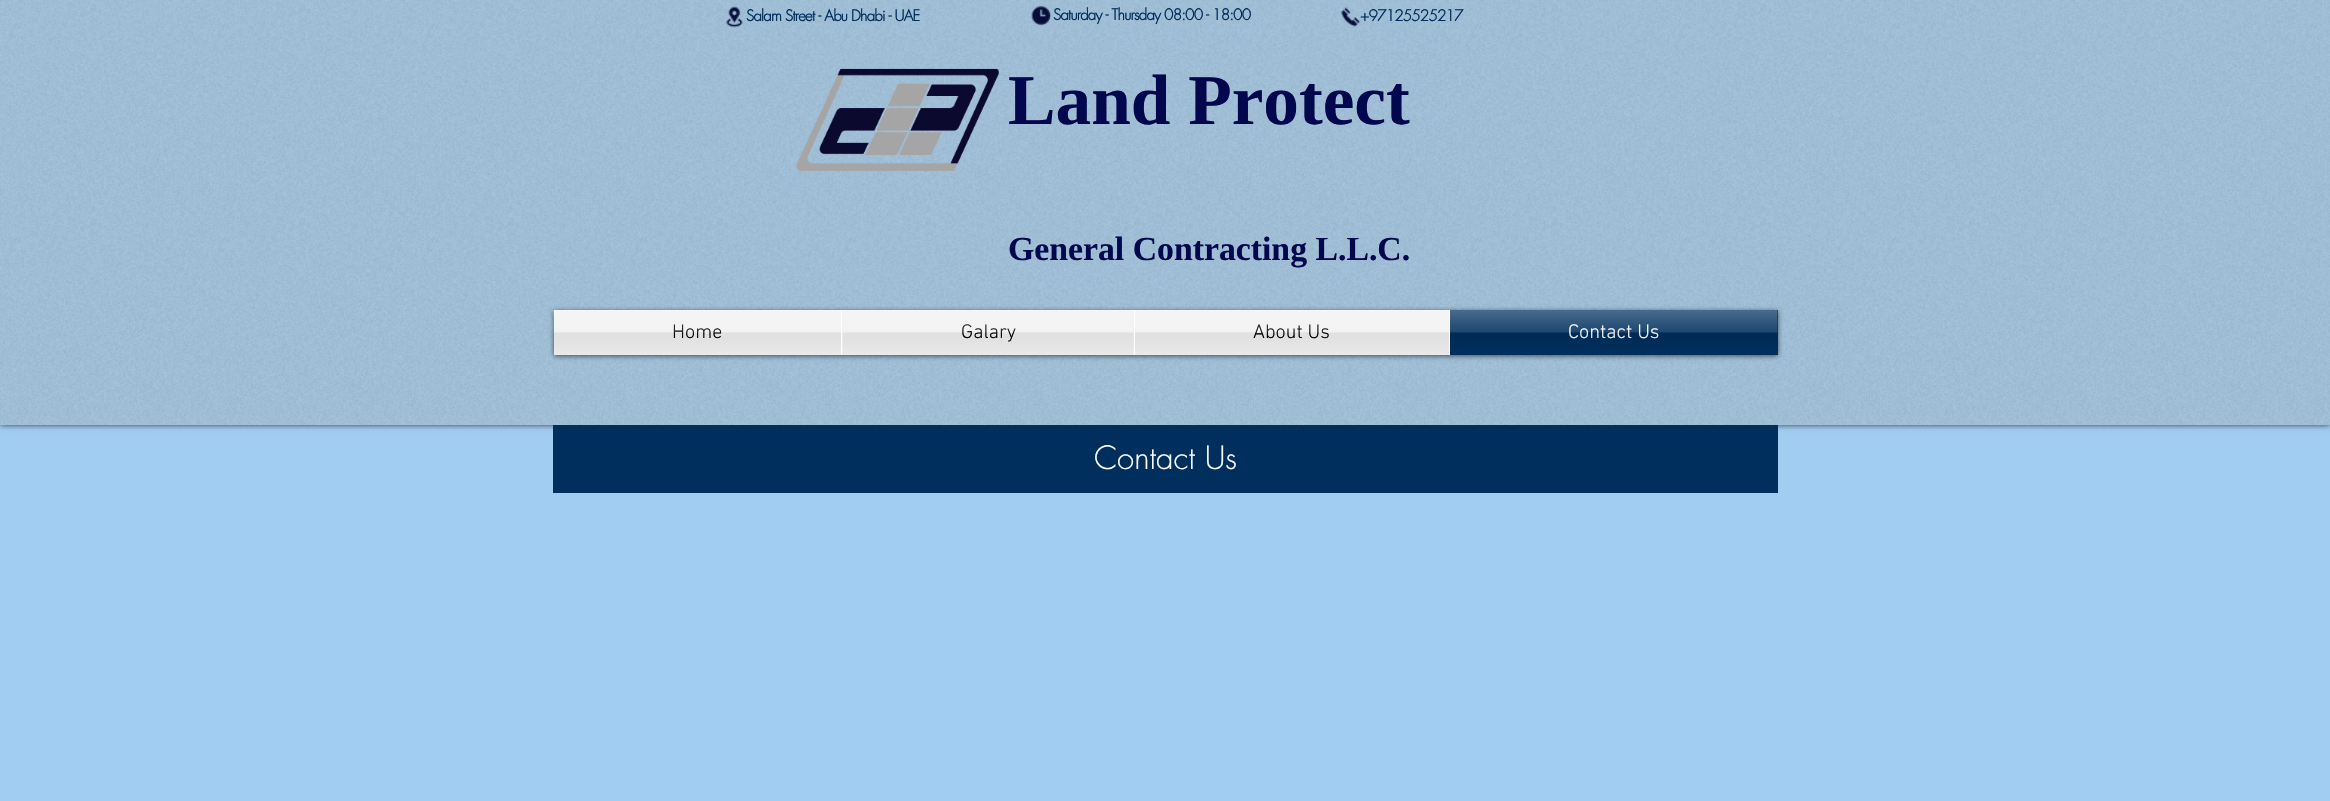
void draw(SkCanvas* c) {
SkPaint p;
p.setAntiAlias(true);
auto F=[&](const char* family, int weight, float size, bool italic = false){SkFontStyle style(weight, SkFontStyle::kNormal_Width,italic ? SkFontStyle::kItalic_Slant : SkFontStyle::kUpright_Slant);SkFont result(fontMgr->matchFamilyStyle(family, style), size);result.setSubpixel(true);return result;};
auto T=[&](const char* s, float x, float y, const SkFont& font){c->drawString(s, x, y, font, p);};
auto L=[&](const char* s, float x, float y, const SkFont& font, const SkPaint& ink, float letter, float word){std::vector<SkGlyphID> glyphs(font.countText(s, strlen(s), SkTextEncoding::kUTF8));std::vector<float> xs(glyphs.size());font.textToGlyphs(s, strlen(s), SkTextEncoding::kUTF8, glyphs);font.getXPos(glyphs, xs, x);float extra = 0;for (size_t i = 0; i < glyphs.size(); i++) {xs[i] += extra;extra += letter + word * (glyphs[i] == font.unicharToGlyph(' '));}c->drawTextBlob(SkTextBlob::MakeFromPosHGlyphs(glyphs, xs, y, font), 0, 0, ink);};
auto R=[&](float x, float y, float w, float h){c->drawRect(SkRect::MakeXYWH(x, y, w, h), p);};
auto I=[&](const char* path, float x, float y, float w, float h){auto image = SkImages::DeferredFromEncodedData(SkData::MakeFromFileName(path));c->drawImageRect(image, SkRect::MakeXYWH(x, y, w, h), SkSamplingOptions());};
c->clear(0xffa2cdf2);
p.setColor(0xb3000000);
p.setMaskFilter(SkMaskFilter::MakeBlur(kNormal_SkBlurStyle, 3));
c->drawRect(SkRect::MakeXYWH(0,0,2330,425),p);
p.setMaskFilter(nullptr);
p.setColor(0xffa3c3db);
R(0,0,2330,425);
I("1.png",0,0,2330,425);
I("2.png",726,6,17,22);
auto f1 = F("futura",700,15);
p.setColor(0xff002e5d);
L("Salam Street - Abu Dhabi - UAE",746,21,f1,p,-.75,0);
I("3.png",1031,6,21,20);
L("Saturday - Thursday 08:00 - 18:00",1053,20,f1,p,-.75,0);
L("+97125525217",1360,21,f1,p,-.75,0);
I("4.png",1341,7,20,20);
I("5.png",796,68,203,103);
auto f2 = F("Liberation Serif",700,71.25);
p.setColor(0xff03074d);
T("Land Protect",1008,124,f2);
auto f3 = F("Liberation Serif",700,33.75);
T("General Contracting L.L.C.",1008,260,f3);
p.setColor(0x99000000);
p.setMaskFilter(SkMaskFilter::MakeBlur(kNormal_SkBlurStyle, 2.5));
c->drawRect(SkRect::MakeXYWH(554,311,1224,45),p);
p.setMaskFilter(nullptr);
I("6.png",553,310,1,23);
p.setColor(0xfff1f1f1);
R(554,310,287,45);
auto f4 = F("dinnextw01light",300,20);
p.setColor(0xff000000);
T("Home",672,338,f4);
I("7.png",553,310,288,45);
p.setColor(0xfff1f1f1);
R(842,310,292,45);
p.setColor(0xffffffff);
R(841,310,1,45);
p.setColor(0xff000000);
T("Galary",961,338,f4);
I("8.png",842,310,292,45);
p.setColor(0xfff1f1f1);
R(1135,310,314,45);
p.setColor(0xffffffff);
R(1134,310,1,45);
p.setColor(0xff000000);
T("About Us",1253,338,f4);
I("9.png",1135,310,314,45);
p.setColor(0xff002e5d);
R(1450,310,328,45);
p.setColor(0xffffffff);
R(1449,310,1,45);
T("Contact Us",1568,338,f4);
I("10.png",1450,310,328,39);
p.setColor(0xff002e5d);
R(553,425,1225,68);
auto f5 = F("futura",300,31.25);
p.setColor(0xffffffff);
T("Contact Us",1094,469,f5);
}
